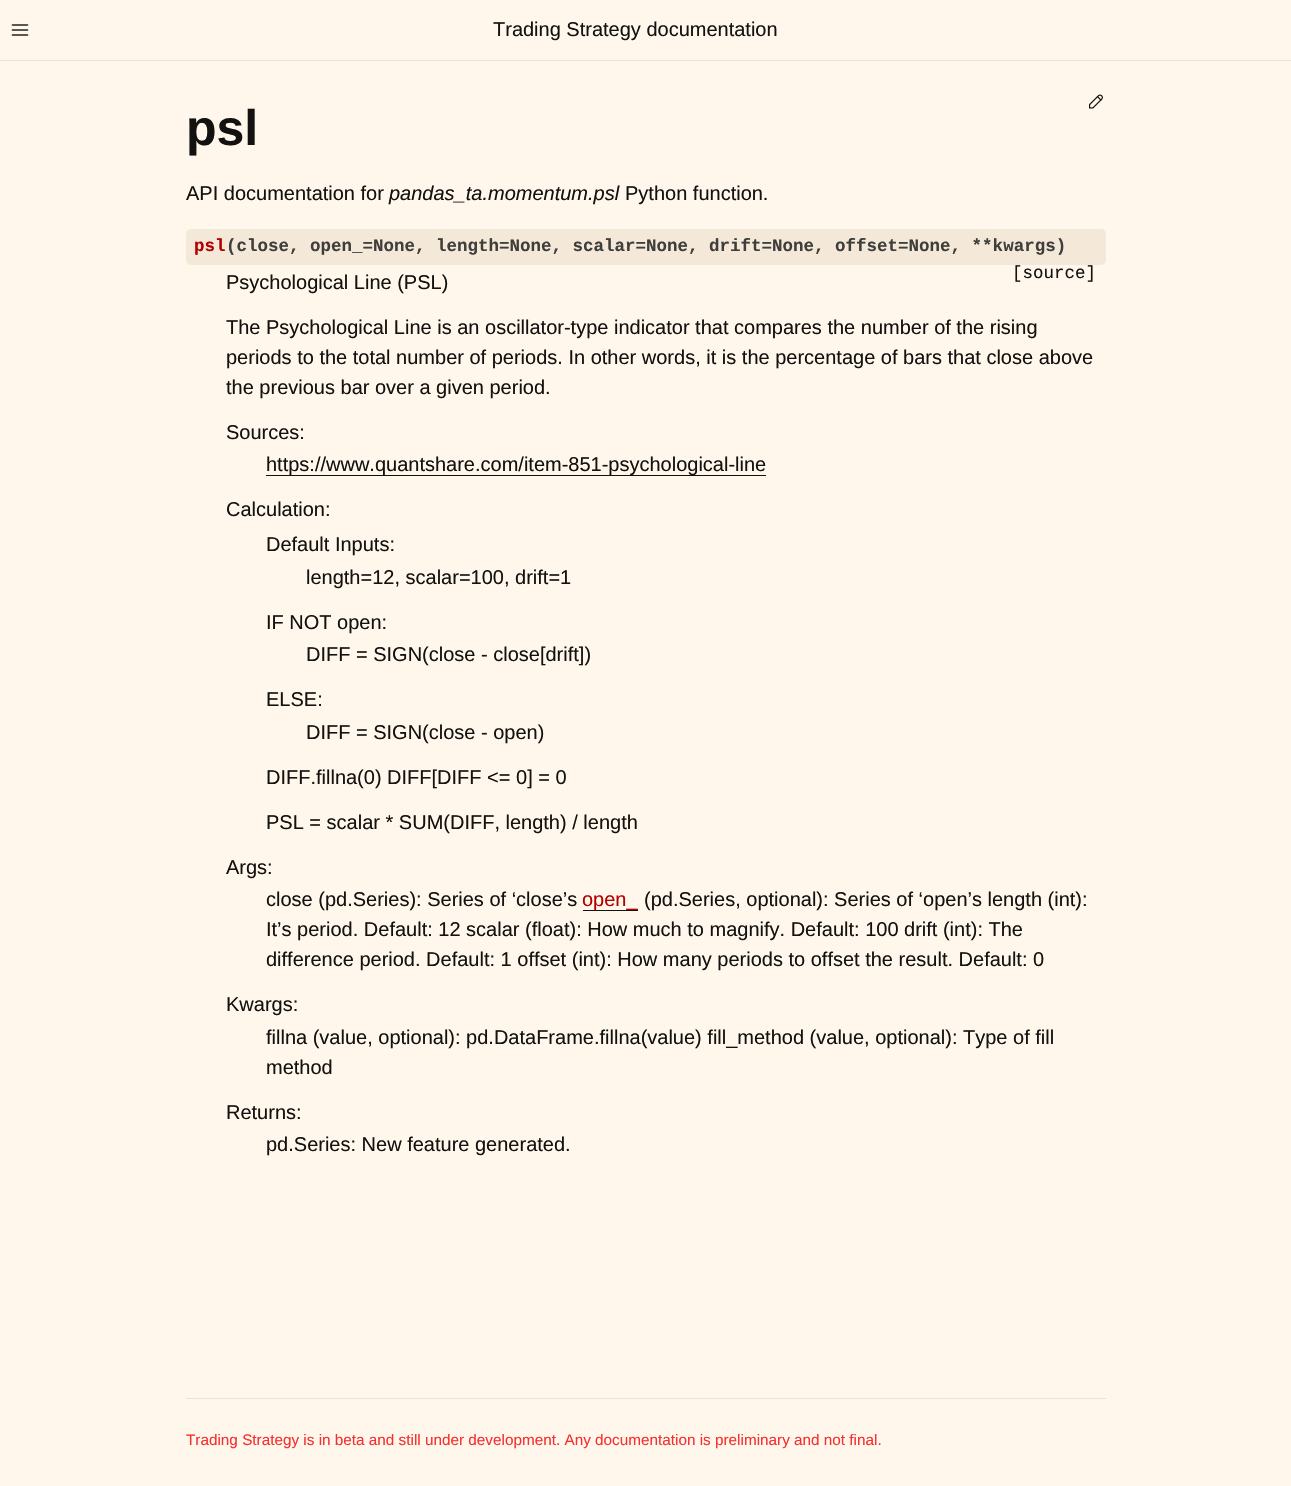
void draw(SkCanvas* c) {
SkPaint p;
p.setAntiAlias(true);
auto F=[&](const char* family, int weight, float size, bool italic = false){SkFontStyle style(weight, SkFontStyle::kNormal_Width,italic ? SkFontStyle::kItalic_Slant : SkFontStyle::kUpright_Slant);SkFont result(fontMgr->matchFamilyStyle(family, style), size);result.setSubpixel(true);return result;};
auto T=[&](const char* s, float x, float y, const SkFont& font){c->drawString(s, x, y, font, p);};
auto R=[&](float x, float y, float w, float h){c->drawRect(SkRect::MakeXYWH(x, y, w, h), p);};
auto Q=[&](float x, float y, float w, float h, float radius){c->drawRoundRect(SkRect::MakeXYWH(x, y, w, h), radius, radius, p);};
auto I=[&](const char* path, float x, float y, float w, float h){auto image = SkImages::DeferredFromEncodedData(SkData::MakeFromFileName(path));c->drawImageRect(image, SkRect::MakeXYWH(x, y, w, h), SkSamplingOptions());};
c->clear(0xfffff7eb);
p.setColor(0xffede2d0);
R(0,60,1291,1);
I("1.png",11,24,18,12);
auto f1 = F("Liberation Sans",400,20);
p.setColor(0xff131210);
T("Trading Strategy documentation",493,36,f1);
I("2.png",1089,94,14,15);
auto f2 = F("Liberation Sans",700,50);
T("psl",186,145,f2);
T("API documentation for",186,200,f1);
auto f3 = F("Liberation Sans",400,20,true);
T("pandas_ta.momentum.psl",389,200,f3);
T("Python function.",625,200,f1);
p.setColor(0xfff4e9d9);
Q(186,229,920,36,5);
auto f4 = F("Liberation Mono",700,17.5);
p.setColor(0xffb30000);
T("psl",194,251,f4);
p.setColor(0xff3f3e3b);
T("(close, open_=None, length=None, scalar=None, drift=None, offset=None, **kwargs)",226,251,f4);
auto f5 = F("Liberation Mono",400,17.5);
p.setColor(0xff131210);
T("[source]",1012,278,f5);
T("Psychological Line (PSL)",226,289,f1);
T("The Psychological Line is an oscillator-type indicator that compares the number of the rising",226,334,f1);
T("periods to the total number of periods. In other words, it is the percentage of bars that close above",226,364,f1);
T("the previous bar over a given period.",226,394,f1);
T("Sources:",226,439,f1);
R(266,475,500,1);
T("https://www.quantshare.com/item-851-psychological-line",266,471,f1);
T("Calculation:",226,516,f1);
T("Default Inputs:",266,551,f1);
T("length=12, scalar=100, drift=1",306,584,f1);
T("IF NOT open:",266,629,f1);
T("DIFF = SIGN(close - close[drift])",306,661,f1);
T("ELSE:",266,706,f1);
T("DIFF = SIGN(close - open)",306,739,f1);
T("DIFF.fillna(0) DIFF[DIFF <= 0] = 0",266,784,f1);
T("PSL = scalar * SUM(DIFF, length) / length",266,829,f1);
T("Args:",226,874,f1);
T("close (pd.Series): Series of ‘close’s",266,906,f1);
R(583,910,55,1);
p.setColor(0xffb30000);
T("open_",582,906,f1);
p.setColor(0xff131210);
T("(pd.Series, optional): Series of ‘open’s length (int):",644,906,f1);
T("It’s period. Default: 12 scalar (float): How much to magnify. Default: 100 drift (int): The",266,936,f1);
T("difference period. Default: 1 offset (int): How many periods to offset the result. Default: 0",266,966,f1);
T("Kwargs:",226,1011,f1);
T("fillna (value, optional): pd.DataFrame.fillna(value) fill_method (value, optional): Type of fill",266,1044,f1);
T("method",266,1074,f1);
T("Returns:",226,1119,f1);
T("pd.Series: New feature generated.",266,1151,f1);
p.setColor(0xffede2d0);
R(186,1398,920,1);
auto f6 = F("Liberation Sans",400,15.3);
p.setColor(0xfff62f2f);
T("Trading Strategy is in beta and still under development. Any documentation is preliminary and not final.",186,1445,f6);
}
